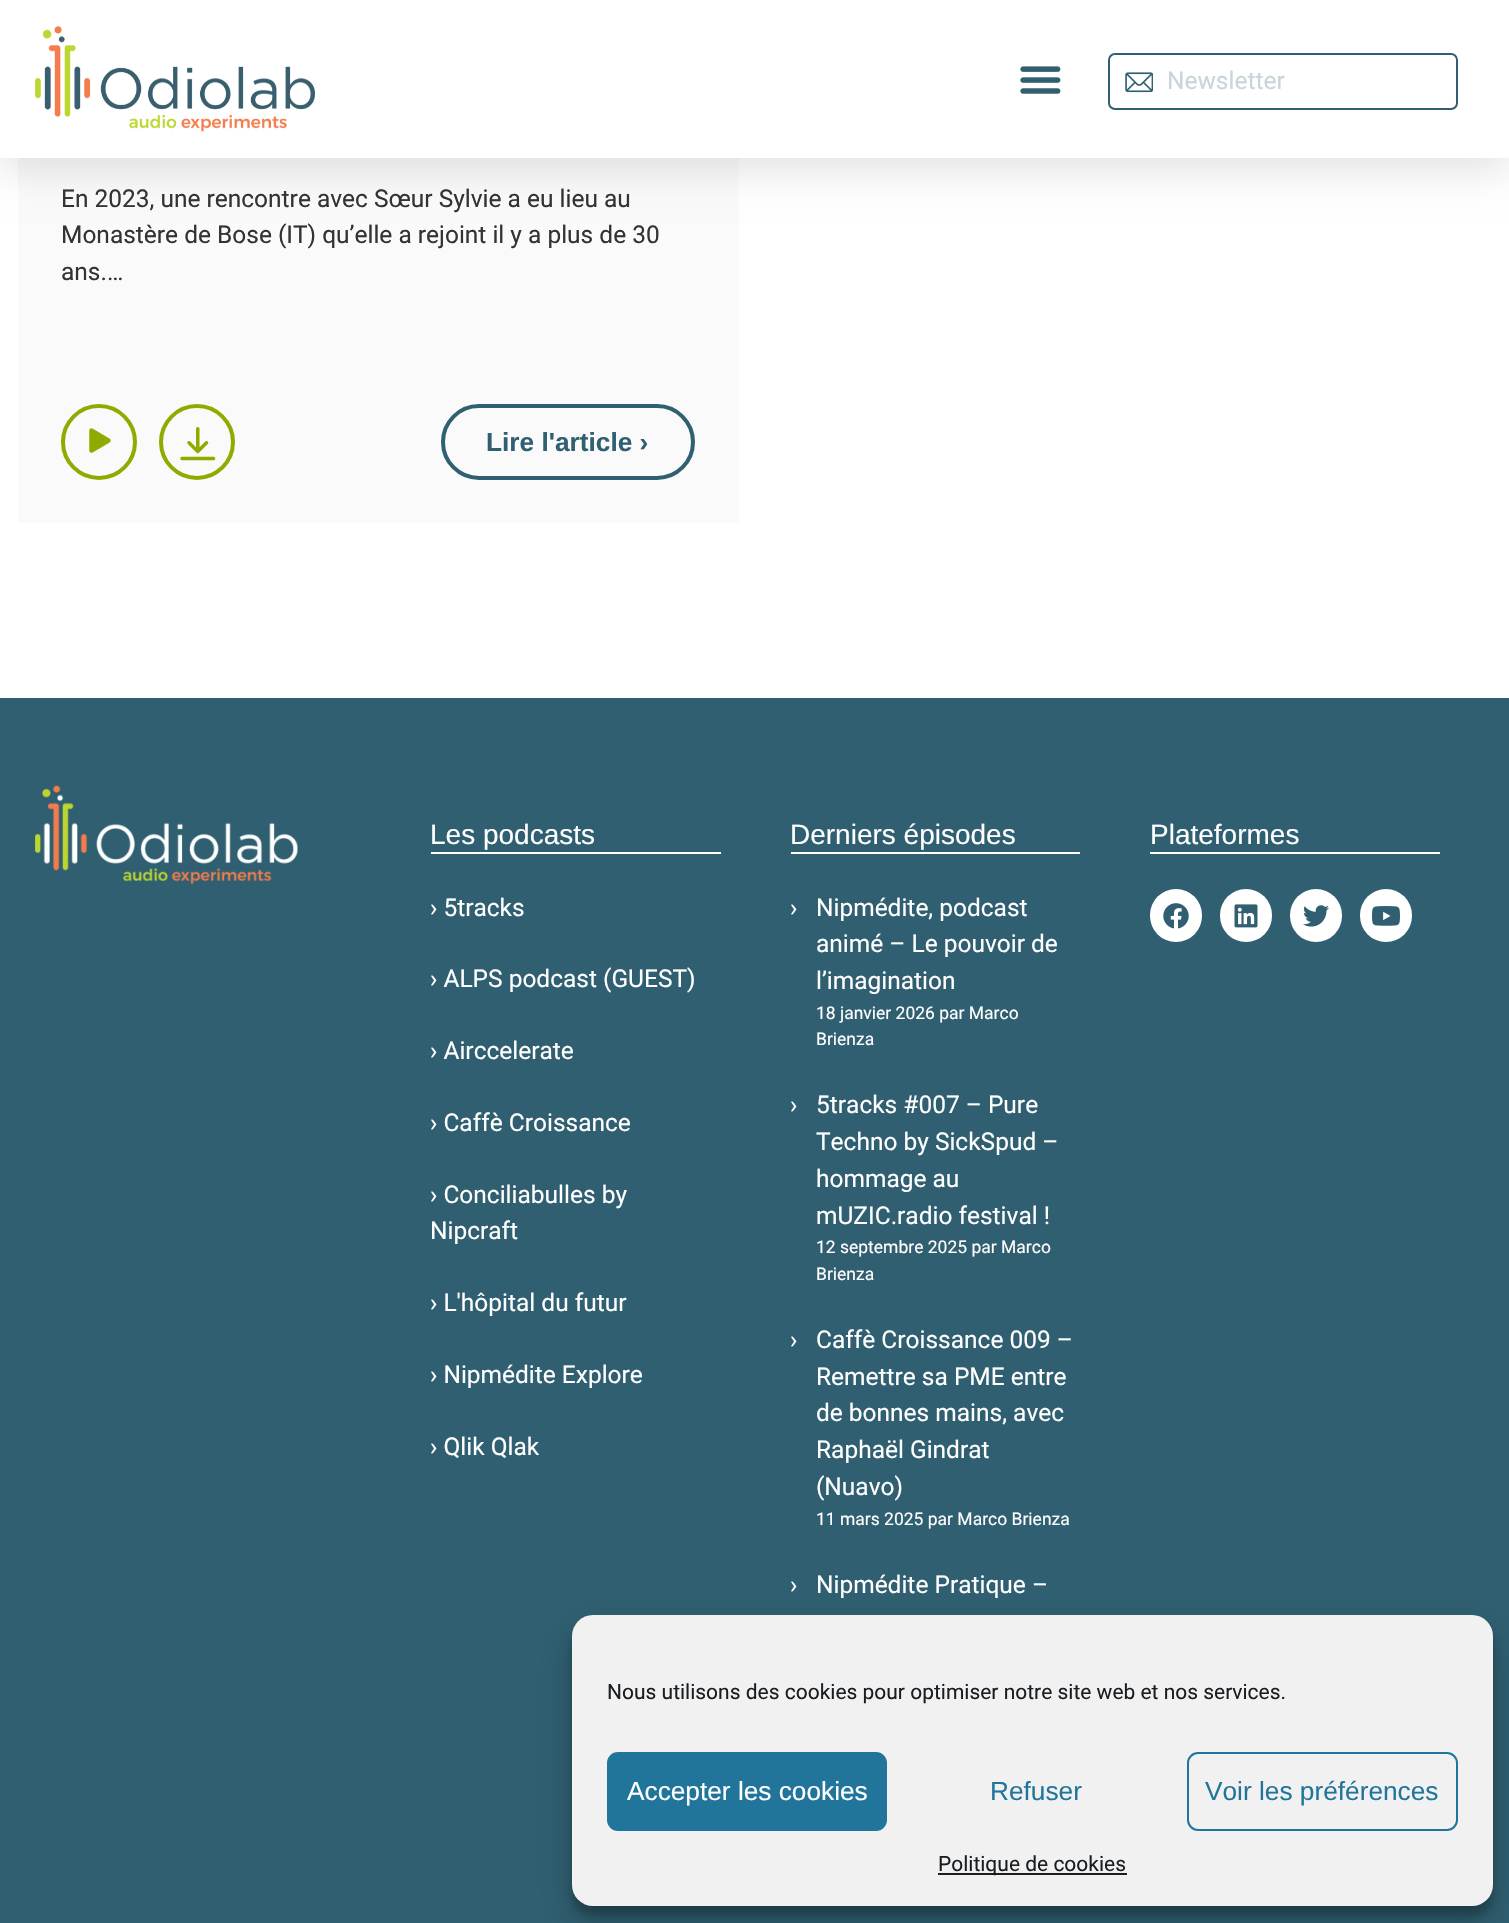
void draw(SkCanvas* c) {
SkPaint p;
p.setAntiAlias(true);
auto F=[&](const char* family, int weight, float size, bool italic = false){SkFontStyle style(weight, SkFontStyle::kNormal_Width,italic ? SkFontStyle::kItalic_Slant : SkFontStyle::kUpright_Slant);SkFont result(fontMgr->matchFamilyStyle(family, style), size);result.setSubpixel(true);return result;};
auto T=[&](const char* s, float x, float y, const SkFont& font){c->drawString(s, x, y, font, p);};
auto R=[&](float x, float y, float w, float h){c->drawRect(SkRect::MakeXYWH(x, y, w, h), p);};
auto Q=[&](float x, float y, float w, float h, float radius){c->drawRoundRect(SkRect::MakeXYWH(x, y, w, h), radius, radius, p);};
auto I=[&](const char* path, float x, float y, float w, float h){auto image = SkImages::DeferredFromEncodedData(SkData::MakeFromFileName(path));c->drawImageRect(image, SkRect::MakeXYWH(x, y, w, h), SkSamplingOptions());};
c->clear(0xffffffff);
p.setColor(0xfffafafa);
R(18,158,721,365);
p.setColor(0x1a000000);
p.setMaskFilter(SkMaskFilter::MakeBlur(kNormal_SkBlurStyle, 17.5));
c->drawRect(SkRect::MakeXYWH(0,14,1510,158),p);
p.setMaskFilter(nullptr);
p.setColor(0xffffffff);
R(0,0,1509,158);
I("1.png",35,26,280,106);
I("2.png",1020,66,41,28);
p.setStroke(true);
p.setStrokeWidth(2);
p.setColor(0xff2f5f70);
c->drawRoundRect(SkRect::MakeXYWH(1109,54,348,55),6,6,p);
I("3.png",1125,72,28,21);
auto f1 = F("Roboto",400,24.5);
p.setStroke(false);
p.setColor(0xffc9d5da);
T("Newsletter",1167,89,f1);
p.setColor(0xff333333);
T("En 2023, une rencontre avec Sœur Sylvie a eu lieu au",61,207,f1);
T("Monastère de Bose (IT) qu’elle a rejoint il y a plus de 30",61,243,f1);
T("ans.…",61,280,f1);
p.setStroke(true);
p.setStrokeWidth(4);
p.setColor(0xff90ab00);
c->drawCircle(99,442,36,p);
I("4.png",89,428,22,25);
c->drawCircle(197,442,36,p);
I("5.png",180,427,36,34);
p.setColor(0xff2f5f70);
c->drawRoundRect(SkRect::MakeXYWH(443,406,250,72),36,36,p);
auto f2 = F("Liberation Sans",700,26.25);
p.setStroke(false);
T("Lire l'article ›",486,451,f2);
R(0,698,1509,1225);
I("6.png",35,785,263,99);
p.setColor(0xffffffff);
R(431,852,290,2);
auto f3 = F("Liberation Sans",400,28);
T("Les podcasts",430,844,f3);
T("› 5tracks",430,916,f1);
T("› ALPS podcast (GUEST)",430,987,f1);
T("› Airccelerate",430,1059,f1);
T("› Caffè Croissance",430,1131,f1);
T("› Conciliabulles by",430,1203,f1);
T("Nipcraft",430,1239,f1);
T("› L'hôpital du futur",430,1311,f1);
T("› Nipmédite Explore",430,1383,f1);
T("› Qlik Qlak",430,1455,f1);
R(791,852,289,2);
T("Derniers épisodes",790,844,f3);
T("›",790,916,f1);
T("Nipmédite, podcast",816,916,f1);
T("animé – Le pouvoir de",816,952,f1);
T("l’imagination",816,989,f1);
auto f4 = F("Roboto",400,17.5);
T("18 janvier 2026 par Marco",816,1019,f4);
T("Brienza",816,1045,f4);
T("›",790,1113,f1);
T("5tracks #007 – Pure",816,1113,f1);
T("Techno by SickSpud –",816,1150,f1);
T("hommage au",816,1187,f1);
T("mUZIC.radio festival !",816,1224,f1);
T("12 septembre 2025 par Marco",816,1253,f4);
T("Brienza",816,1280,f4);
T("›",790,1348,f1);
T("Caffè Croissance 009 –",816,1348,f1);
T("Remettre sa PME entre",816,1385,f1);
T("de bonnes mains, avec",816,1421,f1);
T("Raphaël Gindrat",816,1458,f1);
T("(Nuavo)",816,1495,f1);
T("11 mars 2025 par Marco Brienza",816,1525,f4);
T("›",790,1593,f1);
T("Nipmédite Pratique –",816,1593,f1);
R(1150,852,290,2);
T("Plateformes",1150,844,f3);
Q(1150,889,52,53,26);
I("7.png",1163,903,26,26);
Q(1220,889,52,53,26);
I("8.png",1234,904,24,24);
Q(1290,889,52,53,26);
I("9.png",1303,905,26,22);
Q(1360,889,52,53,26);
I("10.png",1372,906,28,20);
p.setColor(0x3b000000);
p.setMaskFilter(SkMaskFilter::MakeBlur(kNormal_SkBlurStyle, 5));
c->drawRoundRect(SkRect::MakeXYWH(572,1626,921,290),21,21,p);
p.setMaskFilter(nullptr);
p.setColor(0x30000000);
p.setMaskFilter(SkMaskFilter::MakeBlur(kNormal_SkBlurStyle, 17.5));
c->drawRoundRect(SkRect::MakeXYWH(572,1633,921,290),21,21,p);
p.setMaskFilter(nullptr);
p.setColor(0xfff1f1f1);
Q(572,1615,921,291,21);
auto f5 = F("Roboto",400,21);
p.setColor(0xff191e23);
T("Nous utilisons des cookies pour optimiser notre site web et nos services.",607,1699,f5);
p.setColor(0xff21759b);
c->drawRoundRect(SkRect::MakeXYWH(608,1753,278,77),10,10,p);
p.setStroke(true);
p.setStrokeWidth(2);
c->drawRoundRect(SkRect::MakeXYWH(608,1753,278,77),10,10,p);
auto f6 = F("Liberation Sans",400,26.25);
p.setStroke(false);
p.setColor(0xffffffff);
T("Accepter les cookies",627,1800,f6);
p.setColor(0xff21759b);
T("Refuser",990,1800,f6);
p.setStroke(true);
c->drawRoundRect(SkRect::MakeXYWH(1188,1753,269,77),10,10,p);
p.setStroke(false);
T("Voir les préférences",1205,1800,f6);
p.setColor(0xff191e23);
R(938,1873,189,2);
T("Politique de cookies",938,1871,f5);
}
